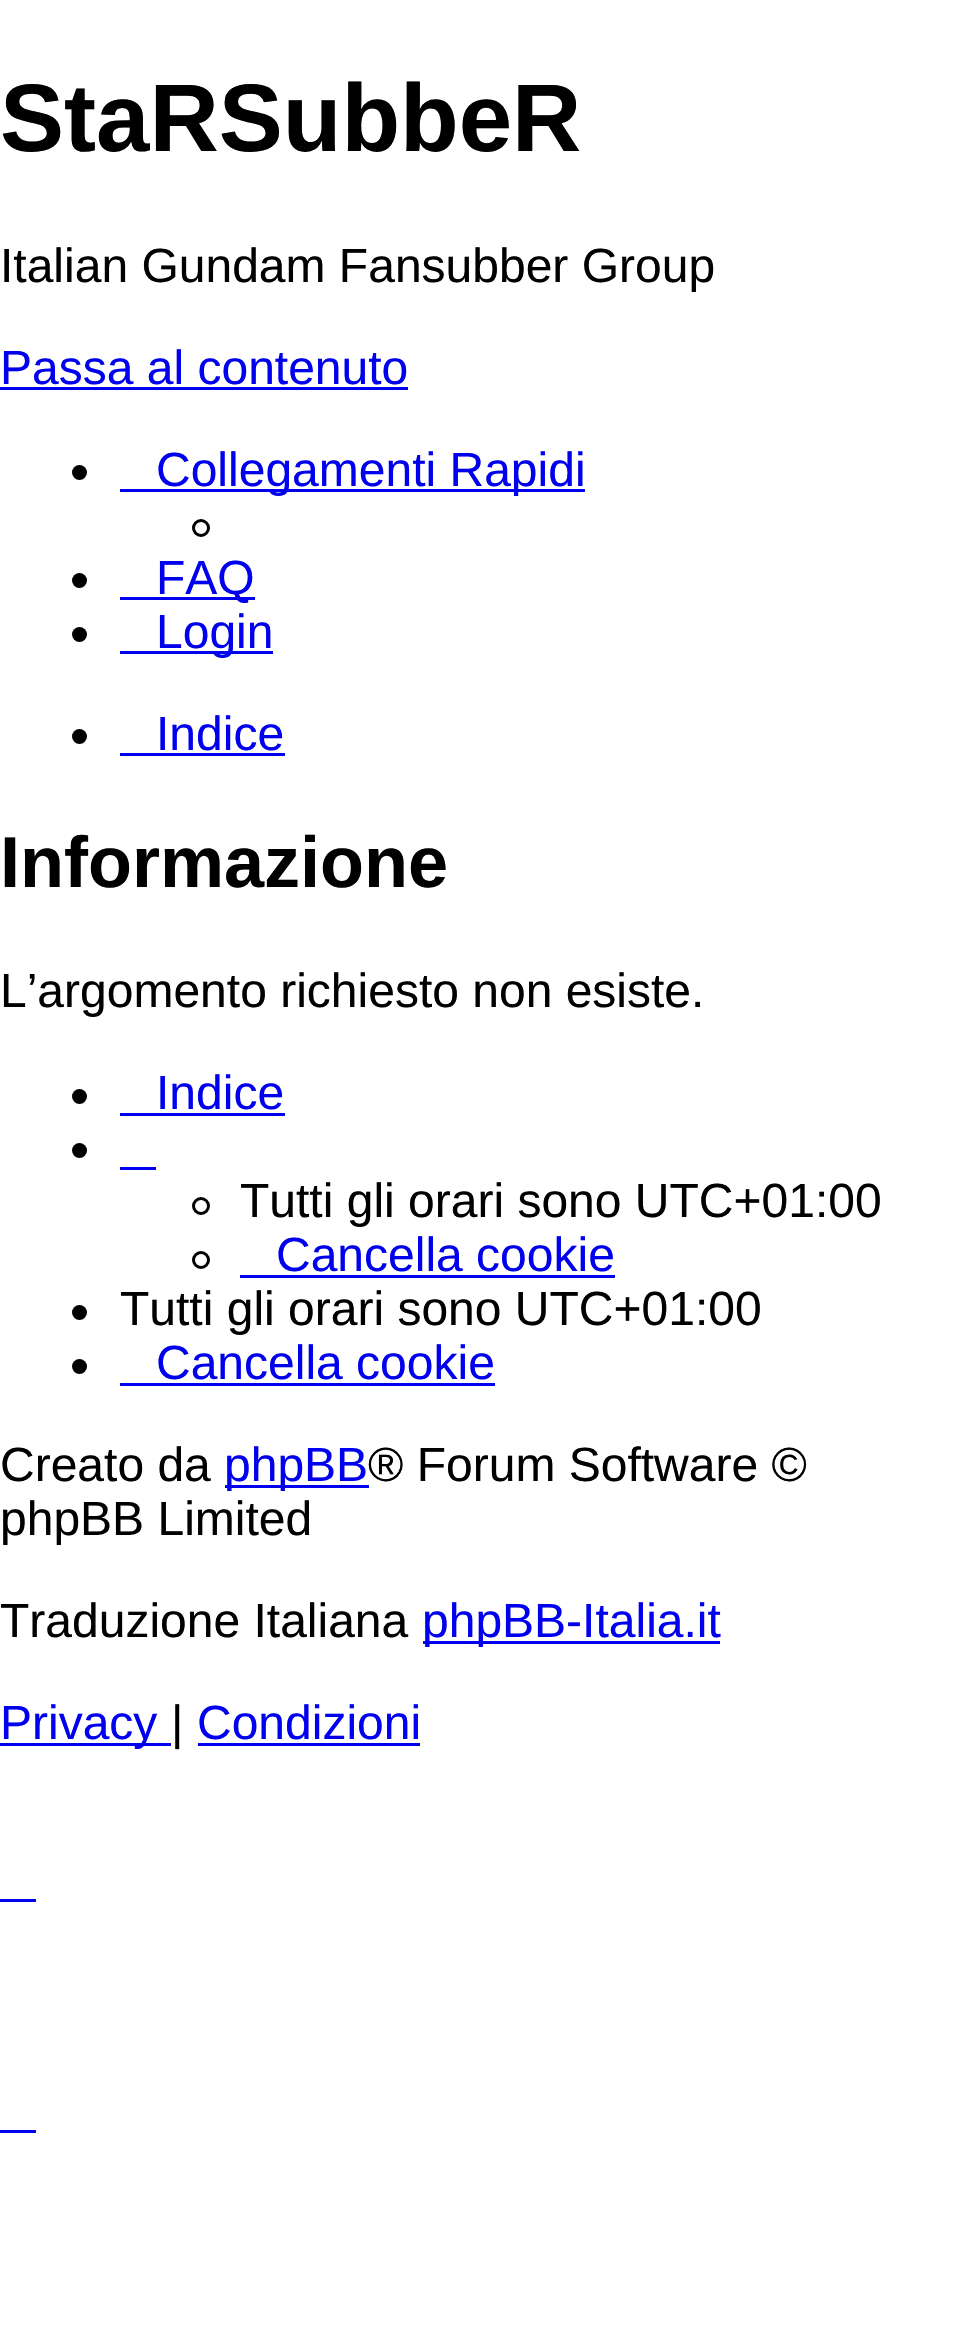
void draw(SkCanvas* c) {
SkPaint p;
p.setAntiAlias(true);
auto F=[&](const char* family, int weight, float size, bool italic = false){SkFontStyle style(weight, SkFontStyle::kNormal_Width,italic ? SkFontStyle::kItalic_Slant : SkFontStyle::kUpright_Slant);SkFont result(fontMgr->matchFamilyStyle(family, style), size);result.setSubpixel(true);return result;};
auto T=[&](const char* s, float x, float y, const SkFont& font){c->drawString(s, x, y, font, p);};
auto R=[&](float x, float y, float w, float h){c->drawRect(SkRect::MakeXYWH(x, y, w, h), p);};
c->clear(0xffffffff);
auto f1 = F("Liberation Sans",700,96);
p.setColor(0xff000000);
T("StaRSubbeR",0,151,f1);
auto f2 = F("Liberation Sans",400,48);
T("Italian Gundam Fansubber Group",0,282,f2);
p.setColor(0xff0000ee);
T("Passa al contenuto",0,384,f2);
R(0,387,408,3);
p.setColor(0xff000000);
c->drawCircle(79.5,472.5,7.5,p);
p.setColor(0xff0000ee);
R(120,489,465,3);
T("Collegamenti Rapidi",156,486,f2);
p.setStroke(true);
p.setStrokeWidth(3);
p.setColor(0xff000000);
c->drawCircle(201,528,7.5,p);
p.setStroke(false);
c->drawCircle(79.5,580.5,7.5,p);
p.setColor(0xff0000ee);
R(120,597,135,3);
T("FAQ",156,594,f2);
p.setColor(0xff000000);
c->drawCircle(79.5,634.5,7.5,p);
p.setColor(0xff0000ee);
R(120,651,153,3);
T("Login",156,648,f2);
p.setColor(0xff000000);
c->drawCircle(79.5,736.5,7.5,p);
p.setColor(0xff0000ee);
T("Indice",156,750,f2);
R(120,753,165,3);
auto f3 = F("Liberation Sans",700,72);
p.setColor(0xff000000);
T("Informazione",0,887,f3);
T("L’argomento richiesto non esiste.",0,1007,f2);
c->drawCircle(79.5,1096.5,7.5,p);
p.setColor(0xff0000ee);
T("Indice",156,1109,f2);
R(120,1113,165,3);
p.setColor(0xff000000);
c->drawCircle(79.5,1150.5,7.5,p);
p.setColor(0xff0000ee);
R(120,1167,36,3);
p.setStroke(true);
p.setColor(0xff000000);
c->drawCircle(201,1206,7.5,p);
p.setStroke(false);
T("Tutti gli orari sono UTC+01:00",240,1217,f2);
p.setStroke(true);
c->drawCircle(201,1260,7.5,p);
p.setStroke(false);
p.setColor(0xff0000ee);
T("Cancella cookie",276,1271,f2);
R(240,1275,375,3);
p.setColor(0xff000000);
c->drawCircle(79.5,1312.5,7.5,p);
T("Tutti gli orari sono UTC+01:00",120,1325,f2);
c->drawCircle(79.5,1366.5,7.5,p);
p.setColor(0xff0000ee);
T("Cancella cookie",156,1379,f2);
R(120,1383,375,3);
p.setColor(0xff000000);
T("Creato da",0,1481,f2);
p.setColor(0xff0000ee);
R(225,1485,144,3);
T("phpBB",224,1481,f2);
p.setColor(0xff000000);
T("® Forum Software ©",368,1481,f2);
T("phpBB Limited",0,1535,f2);
T("Traduzione Italiana",0,1637,f2);
p.setColor(0xff0000ee);
R(423,1641,297,3);
T("phpBB-Italia.it",422,1637,f2);
R(0,1743,156,3);
T("Privacy",0,1739,f2);
R(156,1743,15,3);
p.setColor(0xff000000);
T("|",171,1739,f2);
p.setColor(0xff0000ee);
T("Condizioni",197,1739,f2);
R(198,1743,222,3);
R(0,1899,36,3);
R(0,2130,36,3);
}
